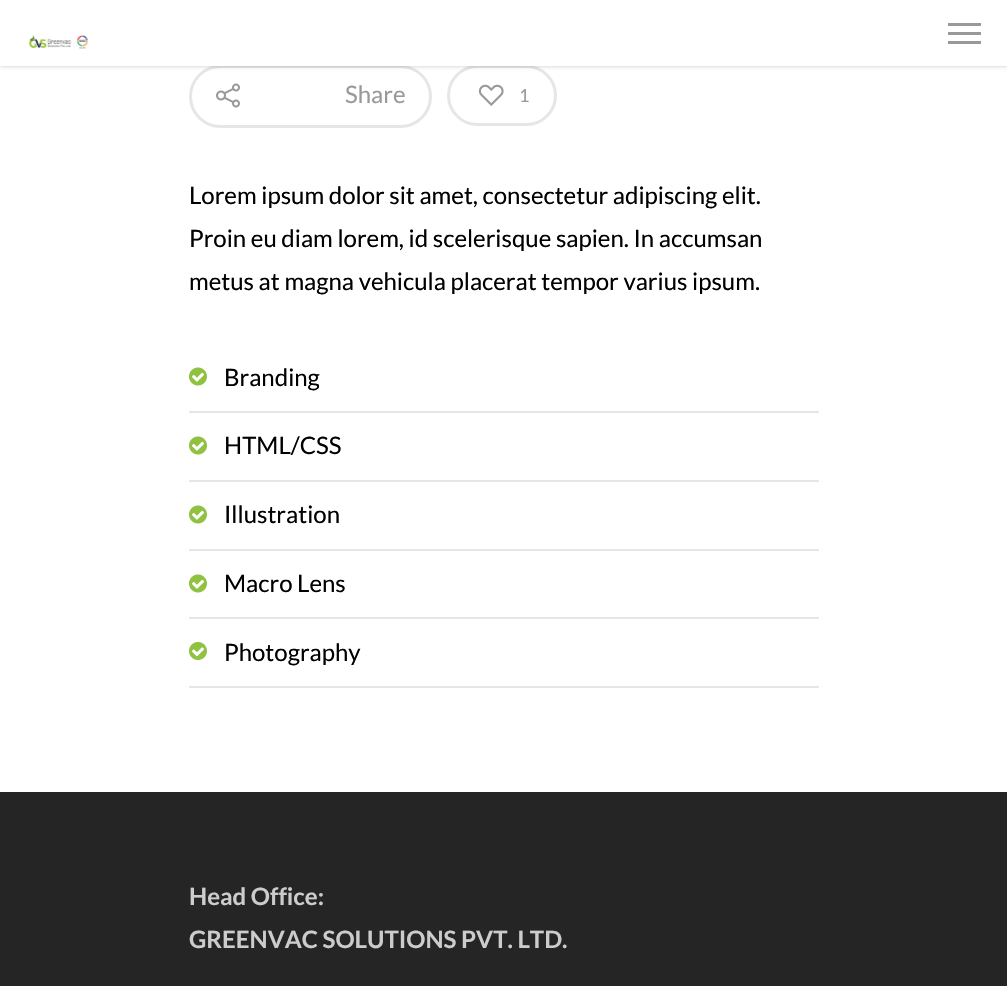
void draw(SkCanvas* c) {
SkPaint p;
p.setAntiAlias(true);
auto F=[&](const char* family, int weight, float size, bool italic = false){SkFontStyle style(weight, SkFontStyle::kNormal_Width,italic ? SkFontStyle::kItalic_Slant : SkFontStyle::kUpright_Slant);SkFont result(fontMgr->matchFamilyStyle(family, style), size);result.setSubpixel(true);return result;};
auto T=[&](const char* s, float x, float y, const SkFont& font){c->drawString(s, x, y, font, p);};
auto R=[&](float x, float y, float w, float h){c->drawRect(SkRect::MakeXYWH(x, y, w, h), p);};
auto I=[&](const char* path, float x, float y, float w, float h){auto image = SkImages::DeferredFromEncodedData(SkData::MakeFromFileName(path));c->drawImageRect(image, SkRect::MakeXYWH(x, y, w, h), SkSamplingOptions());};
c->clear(0xff252525);
p.setColor(0xffffffff);
R(0,66,1007,726);
p.setStroke(true);
p.setStrokeWidth(3);
p.setColor(0xffe6e6e6);
c->drawRoundRect(SkRect::MakeXYWH(190.5,66.5,240,60),30,30,p);
c->drawRoundRect(SkRect::MakeXYWH(448.5,66.5,107,58),29,29,p);
p.setStroke(false);
p.setColor(0x38000000);
p.setMaskFilter(SkMaskFilter::MakeBlur(kNormal_SkBlurStyle, 2));
c->drawRect(SkRect::MakeXYWH(0,0,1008,66),p);
p.setMaskFilter(nullptr);
p.setColor(0xffffffff);
R(0,0,1007,66);
I("1.png",28,35,61,14);
p.setColor(0xff999999);
R(948,23,33,3);
R(948,41,33,3);
R(948,32,33,3);
I("2.png",216,83,24,25);
auto f1 = F("Lato",400,24);
T("Share",345,103,f1);
I("3.png",478,84,26,22);
auto f2 = F("Lato",400,18);
T("1",519,102,f2);
p.setColor(0xff000000);
T("Lorem ipsum dolor sit amet, consectetur adipiscing elit.",189,204,f1);
T("Proin eu diam lorem, id scelerisque sapien. In accumsan",189,247,f1);
T("metus at magna vehicula placerat tempor varius ipsum.",189,290,f1);
p.setColor(0xffe6e6e6);
R(189,411,630,2);
I("4.png",189,367,18,19);
p.setColor(0xff000000);
T("Branding",224,386,f1);
p.setColor(0xffe6e6e6);
R(189,480,630,2);
I("4.png",189,436,18,19);
p.setColor(0xff000000);
T("HTML/CSS",224,454,f1);
p.setColor(0xffe6e6e6);
R(189,549,630,2);
I("4.png",189,505,18,19);
p.setColor(0xff000000);
T("Illustration",224,523,f1);
p.setColor(0xffe6e6e6);
R(189,617,630,2);
I("4.png",189,574,18,19);
p.setColor(0xff000000);
T("Macro Lens",224,592,f1);
p.setColor(0xffe6e6e6);
R(189,686,630,2);
I("5.png",189,642,18,18);
p.setColor(0xff000000);
T("Photography",224,661,f1);
auto f3 = F("Lato",700,24);
p.setColor(0xffcccccc);
T("Head Office:",189,905,f3);
T("GREENVAC SOLUTIONS PVT. LTD.",189,948,f3);
}
